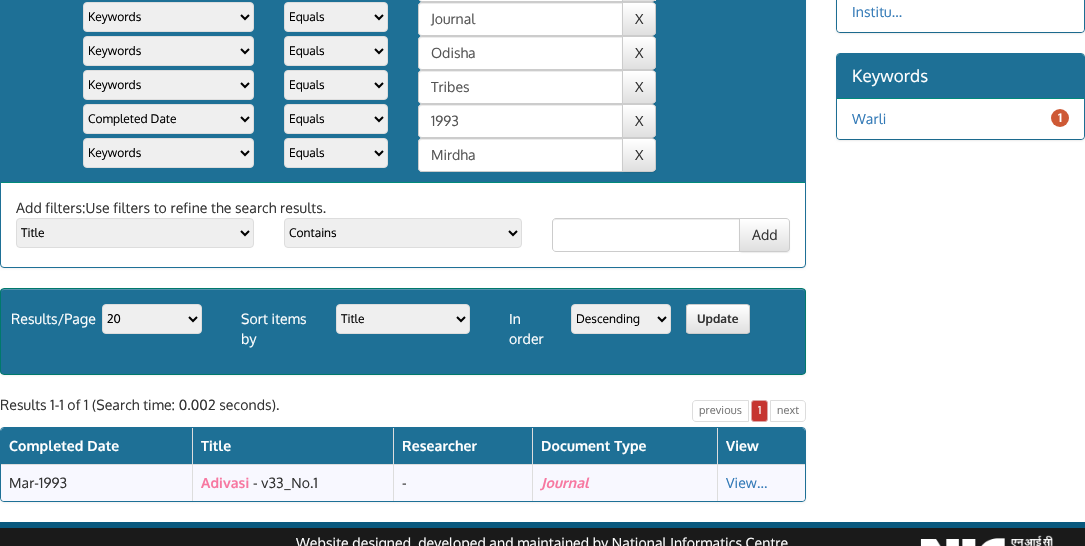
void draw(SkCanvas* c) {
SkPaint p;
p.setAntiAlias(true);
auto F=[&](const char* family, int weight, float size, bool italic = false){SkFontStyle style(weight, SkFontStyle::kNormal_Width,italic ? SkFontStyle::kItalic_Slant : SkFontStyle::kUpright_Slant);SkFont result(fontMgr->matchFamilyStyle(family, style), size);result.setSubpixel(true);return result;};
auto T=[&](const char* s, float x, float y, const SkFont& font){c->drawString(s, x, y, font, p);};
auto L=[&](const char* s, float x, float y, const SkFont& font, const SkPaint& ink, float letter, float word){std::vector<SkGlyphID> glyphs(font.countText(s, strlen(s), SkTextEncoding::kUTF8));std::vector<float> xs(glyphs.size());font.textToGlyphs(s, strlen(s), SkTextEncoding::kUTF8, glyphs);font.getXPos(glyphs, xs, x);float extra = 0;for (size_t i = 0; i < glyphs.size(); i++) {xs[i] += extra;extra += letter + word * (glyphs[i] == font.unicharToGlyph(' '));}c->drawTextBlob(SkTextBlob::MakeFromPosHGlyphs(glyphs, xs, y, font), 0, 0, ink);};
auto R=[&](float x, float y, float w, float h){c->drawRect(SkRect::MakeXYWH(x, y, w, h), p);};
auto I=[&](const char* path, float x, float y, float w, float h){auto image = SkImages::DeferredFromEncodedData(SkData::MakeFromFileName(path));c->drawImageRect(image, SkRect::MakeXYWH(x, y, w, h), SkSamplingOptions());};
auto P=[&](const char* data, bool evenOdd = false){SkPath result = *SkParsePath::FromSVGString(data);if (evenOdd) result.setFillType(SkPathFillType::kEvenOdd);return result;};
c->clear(0xffffffff);
p.setColor(0x0d000000);
p.setMaskFilter(SkMaskFilter::MakeBlur(kNormal_SkBlurStyle, 1));
c->drawRoundRect(SkRect::MakeXYWH(0,-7,806,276),4,4,p);
p.setMaskFilter(nullptr);
p.setColor(0xffffffff);
c->drawRoundRect(SkRect::MakeXYWH(.5,-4.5,805,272),3.5,3.5,p);
p.setStroke(true);
p.setStrokeWidth(1);
p.setColor(0xff1e7096);
c->drawRoundRect(SkRect::MakeXYWH(.5,-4.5,805,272),3.5,3.5,p);
p.setStroke(false);
p.setColor(0xff018a7a);
R(1,182,804,1);
p.setColor(0xff1e7096);
R(1,0,804,182);
p.setColor(0xffffffff);
c->drawPath(P("M422-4.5h200.5v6h-200.5c-2 0-3.5-1.5-3.5-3.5v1c0-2 1.5-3.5 3.5-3.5z"),p);
p.setStroke(true);
p.setColor(0xffcccccc);
c->drawPath(P("M422-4.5h200.5v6h-200.5c-2 0-3.5-1.5-3.5-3.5v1c0-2 1.5-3.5 3.5-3.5z"),p);
p.setStroke(false);
p.setColor(0x12000000);
p.setMaskFilter(SkMaskFilter::MakeBlur(kNormal_SkBlurStyle, .5));
c->drawRoundRect(SkRect::MakeXYWH(622,-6,34,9),4,4,p);
p.setMaskFilter(nullptr);
{
const SkColor colors[] = {0xffffffff,0xffe0e0e0};
const float stops[] = {0,1};
const SkPoint ends[] = {{639,-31}, {639,1}};
p.setShader(SkGradientShader::MakeLinear(ends, colors, stops, 2, SkTileMode::kClamp));
p.setAlpha(255);
}
R(622,0,34,1);
p.setStroke(true);
p.setShader(nullptr);
p.setColor(0xffcccccc);
c->drawPath(P("M622.5-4.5h29.5c2 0 3.5 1.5 3.5 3.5v-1c0 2-1.5 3.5-3.5 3.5h-29.5z"),p);
p.setStroke(false);
p.setColor(0xffefefef);
c->drawRoundRect(SkRect::MakeXYWH(83.5,2.5,170,29),3.5,3.5,p);
p.setStroke(true);
p.setColor(0xffdddddd);
c->drawRoundRect(SkRect::MakeXYWH(83.5,2.5,170,29),3.5,3.5,p);
p.setStrokeWidth(2);
p.setColor(0xff000000);
c->drawPath(P("M241 15l4 4l4-4"),p);
auto f1 = F("Oxygen",400,12);
p.setStroke(false);
T("Keywords",88,21,f1);
p.setColor(0xffefefef);
c->drawRoundRect(SkRect::MakeXYWH(284.5,2.5,103,29),3.5,3.5,p);
p.setStroke(true);
p.setStrokeWidth(1);
p.setColor(0xffdddddd);
c->drawRoundRect(SkRect::MakeXYWH(284.5,2.5,103,29),3.5,3.5,p);
p.setStrokeWidth(2);
p.setColor(0xff000000);
c->drawPath(P("M375 15l4 4l4-4"),p);
p.setStroke(false);
T("Equals",289,21,f1);
p.setColor(0xffffffff);
c->drawPath(P("M422 2h201v34h-201c-2 0-4-2-4-4v-26c0-2 2-4 4-4z"),p);
p.setColor(0xffececec);
c->drawPath(P("M422 4h200v-1h-201c-2 1-2 2-2 4c0-2 1-3 3-3z"),p);
p.setStroke(true);
p.setStrokeWidth(1);
p.setColor(0xffcccccc);
c->drawPath(P("M422 2.5h200.5v33h-200.5c-2 0-3.5-1.5-3.5-3.5v-26c0-2 1.5-3.5 3.5-3.5z"),p);
auto f2 = F("Oxygen",400,14);
p.setStroke(false);
p.setColor(0xff555555);
T("Journal",431,24,f2);
p.setColor(0x12000000);
p.setMaskFilter(SkMaskFilter::MakeBlur(kNormal_SkBlurStyle, .5));
c->drawRoundRect(SkRect::MakeXYWH(622,3,34,34),4,4,p);
p.setMaskFilter(nullptr);
c->save();
c->clipPath(P("M622 2h30c2 0 4 2 4 4v26c0 2-2 4-4 4h-30z"),true);
{
const SkColor colors[] = {0xffffffff,0xffe0e0e0};
const float stops[] = {0,1};
const SkPoint ends[] = {{639,3}, {639,35}};
p.setShader(SkGradientShader::MakeLinear(ends, colors, stops, 2, SkTileMode::kClamp));
p.setAlpha(255);
}
R(623,3,33,32);
c->restore();
p.setStroke(true);
p.setShader(nullptr);
p.setColor(0xffcccccc);
c->drawPath(P("M622.5 2.5h29.5c2 0 3.5 1.5 3.5 3.5v26c0 2-1.5 3.5-3.5 3.5h-29.5z"),p);
p.setStroke(false);
p.setColor(0xff333333);
T("X",635,24,f2);
p.setColor(0xffefefef);
c->drawRoundRect(SkRect::MakeXYWH(83.5,36.5,170,29),3.5,3.5,p);
p.setStroke(true);
p.setColor(0xffdddddd);
c->drawRoundRect(SkRect::MakeXYWH(83.5,36.5,170,29),3.5,3.5,p);
p.setStrokeWidth(2);
p.setColor(0xff000000);
c->drawPath(P("M241 49l4 4l4-4"),p);
p.setStroke(false);
T("Keywords",88,55,f1);
p.setColor(0xffefefef);
c->drawRoundRect(SkRect::MakeXYWH(284.5,36.5,103,29),3.5,3.5,p);
p.setStroke(true);
p.setStrokeWidth(1);
p.setColor(0xffdddddd);
c->drawRoundRect(SkRect::MakeXYWH(284.5,36.5,103,29),3.5,3.5,p);
p.setStrokeWidth(2);
p.setColor(0xff000000);
c->drawPath(P("M375 49l4 4l4-4"),p);
p.setStroke(false);
T("Equals",289,55,f1);
p.setColor(0xffffffff);
c->drawPath(P("M422 36h201v34h-201c-2 0-4-2-4-4v-26c0-2 2-4 4-4z"),p);
p.setColor(0xffececec);
c->drawPath(P("M422 38h200v-1h-201c-2 1-2 2-2 4c0-2 1-3 3-3z"),p);
p.setStroke(true);
p.setStrokeWidth(1);
p.setColor(0xffcccccc);
c->drawPath(P("M422 36.5h200.5v33h-200.5c-2 0-3.5-1.5-3.5-3.5v-26c0-2 1.5-3.5 3.5-3.5z"),p);
p.setStroke(false);
p.setColor(0xff555555);
T("Odisha",431,58,f2);
p.setColor(0x12000000);
p.setMaskFilter(SkMaskFilter::MakeBlur(kNormal_SkBlurStyle, .5));
c->drawRoundRect(SkRect::MakeXYWH(622,37,34,34),4,4,p);
p.setMaskFilter(nullptr);
c->save();
c->clipPath(P("M622 36h30c2 0 4 2 4 4v26c0 2-2 4-4 4h-30z"),true);
{
const SkColor colors[] = {0xffffffff,0xffe0e0e0};
const float stops[] = {0,1};
const SkPoint ends[] = {{639,37}, {639,69}};
p.setShader(SkGradientShader::MakeLinear(ends, colors, stops, 2, SkTileMode::kClamp));
p.setAlpha(255);
}
R(623,37,33,32);
c->restore();
p.setStroke(true);
p.setShader(nullptr);
p.setColor(0xffcccccc);
c->drawPath(P("M622.5 36.5h29.5c2 0 3.5 1.5 3.5 3.5v26c0 2-1.5 3.5-3.5 3.5h-29.5z"),p);
p.setStroke(false);
p.setColor(0xff333333);
T("X",635,58,f2);
p.setColor(0xffefefef);
c->drawRoundRect(SkRect::MakeXYWH(83.5,70.5,170,29),3.5,3.5,p);
p.setStroke(true);
p.setColor(0xffdddddd);
c->drawRoundRect(SkRect::MakeXYWH(83.5,70.5,170,29),3.5,3.5,p);
p.setStrokeWidth(2);
p.setColor(0xff000000);
c->drawPath(P("M241 83l4 4l4-4"),p);
p.setStroke(false);
T("Keywords",88,89,f1);
p.setColor(0xffefefef);
c->drawRoundRect(SkRect::MakeXYWH(284.5,70.5,103,29),3.5,3.5,p);
p.setStroke(true);
p.setStrokeWidth(1);
p.setColor(0xffdddddd);
c->drawRoundRect(SkRect::MakeXYWH(284.5,70.5,103,29),3.5,3.5,p);
p.setStrokeWidth(2);
p.setColor(0xff000000);
c->drawPath(P("M375 83l4 4l4-4"),p);
p.setStroke(false);
T("Equals",289,89,f1);
p.setColor(0xffffffff);
c->drawPath(P("M422 70h201v34h-201c-2 0-4-2-4-4v-26c0-2 2-4 4-4z"),p);
p.setColor(0xffececec);
c->drawPath(P("M422 72h200v-1h-201c-2 1-2 2-2 4c0-2 1-3 3-3z"),p);
p.setStroke(true);
p.setStrokeWidth(1);
p.setColor(0xffcccccc);
c->drawPath(P("M422 70.5h200.5v33h-200.5c-2 0-3.5-1.5-3.5-3.5v-26c0-2 1.5-3.5 3.5-3.5z"),p);
p.setStroke(false);
p.setColor(0xff555555);
T("Tribes",431,92,f2);
p.setColor(0x12000000);
p.setMaskFilter(SkMaskFilter::MakeBlur(kNormal_SkBlurStyle, .5));
c->drawRoundRect(SkRect::MakeXYWH(622,71,34,34),4,4,p);
p.setMaskFilter(nullptr);
c->save();
c->clipPath(P("M622 70h30c2 0 4 2 4 4v26c0 2-2 4-4 4h-30z"),true);
{
const SkColor colors[] = {0xffffffff,0xffe0e0e0};
const float stops[] = {0,1};
const SkPoint ends[] = {{639,71}, {639,103}};
p.setShader(SkGradientShader::MakeLinear(ends, colors, stops, 2, SkTileMode::kClamp));
p.setAlpha(255);
}
R(623,71,33,32);
c->restore();
p.setStroke(true);
p.setShader(nullptr);
p.setColor(0xffcccccc);
c->drawPath(P("M622.5 70.5h29.5c2 0 3.5 1.5 3.5 3.5v26c0 2-1.5 3.5-3.5 3.5h-29.5z"),p);
p.setStroke(false);
p.setColor(0xff333333);
T("X",635,92,f2);
p.setColor(0xffefefef);
c->drawRoundRect(SkRect::MakeXYWH(83.5,104.5,170,29),3.5,3.5,p);
p.setStroke(true);
p.setColor(0xffdddddd);
c->drawRoundRect(SkRect::MakeXYWH(83.5,104.5,170,29),3.5,3.5,p);
p.setStrokeWidth(2);
p.setColor(0xff000000);
c->drawPath(P("M241 117l4 4l4-4"),p);
p.setStroke(false);
T("Completed Date",88,123,f1);
p.setColor(0xffefefef);
c->drawRoundRect(SkRect::MakeXYWH(284.5,104.5,103,29),3.5,3.5,p);
p.setStroke(true);
p.setStrokeWidth(1);
p.setColor(0xffdddddd);
c->drawRoundRect(SkRect::MakeXYWH(284.5,104.5,103,29),3.5,3.5,p);
p.setStrokeWidth(2);
p.setColor(0xff000000);
c->drawPath(P("M375 117l4 4l4-4"),p);
p.setStroke(false);
T("Equals",289,123,f1);
p.setColor(0xffffffff);
c->drawPath(P("M422 104h201v34h-201c-2 0-4-2-4-4v-26c0-2 2-4 4-4z"),p);
p.setColor(0xffececec);
c->drawPath(P("M422 106h200v-1h-201c-2 1-2 2-2 4c0-2 1-3 3-3z"),p);
p.setStroke(true);
p.setStrokeWidth(1);
p.setColor(0xffcccccc);
c->drawPath(P("M422 104.5h200.5v33h-200.5c-2 0-3.5-1.5-3.5-3.5v-26c0-2 1.5-3.5 3.5-3.5z"),p);
p.setStroke(false);
p.setColor(0xff555555);
T("1993",431,126,f2);
p.setColor(0x12000000);
p.setMaskFilter(SkMaskFilter::MakeBlur(kNormal_SkBlurStyle, .5));
c->drawRoundRect(SkRect::MakeXYWH(622,105,34,34),4,4,p);
p.setMaskFilter(nullptr);
c->save();
c->clipPath(P("M622 104h30c2 0 4 2 4 4v26c0 2-2 4-4 4h-30z"),true);
{
const SkColor colors[] = {0xffffffff,0xffe0e0e0};
const float stops[] = {0,1};
const SkPoint ends[] = {{639,105}, {639,137}};
p.setShader(SkGradientShader::MakeLinear(ends, colors, stops, 2, SkTileMode::kClamp));
p.setAlpha(255);
}
R(623,105,33,32);
c->restore();
p.setStroke(true);
p.setShader(nullptr);
p.setColor(0xffcccccc);
c->drawPath(P("M622.5 104.5h29.5c2 0 3.5 1.5 3.5 3.5v26c0 2-1.5 3.5-3.5 3.5h-29.5z"),p);
p.setStroke(false);
p.setColor(0xff333333);
T("X",635,126,f2);
p.setColor(0xffefefef);
c->drawRoundRect(SkRect::MakeXYWH(83.5,138.5,170,29),3.5,3.5,p);
p.setStroke(true);
p.setColor(0xffdddddd);
c->drawRoundRect(SkRect::MakeXYWH(83.5,138.5,170,29),3.5,3.5,p);
p.setStrokeWidth(2);
p.setColor(0xff000000);
c->drawPath(P("M241 151l4 4l4-4"),p);
p.setStroke(false);
T("Keywords",88,157,f1);
p.setColor(0xffefefef);
c->drawRoundRect(SkRect::MakeXYWH(284.5,138.5,103,29),3.5,3.5,p);
p.setStroke(true);
p.setStrokeWidth(1);
p.setColor(0xffdddddd);
c->drawRoundRect(SkRect::MakeXYWH(284.5,138.5,103,29),3.5,3.5,p);
p.setStrokeWidth(2);
p.setColor(0xff000000);
c->drawPath(P("M375 151l4 4l4-4"),p);
p.setStroke(false);
T("Equals",289,157,f1);
p.setColor(0xffffffff);
c->drawPath(P("M422 138h201v34h-201c-2 0-4-2-4-4v-26c0-2 2-4 4-4z"),p);
p.setColor(0xffececec);
c->drawPath(P("M422 140h200v-1h-201c-2 1-2 2-2 4c0-2 1-3 3-3z"),p);
p.setStroke(true);
p.setStrokeWidth(1);
p.setColor(0xffcccccc);
c->drawPath(P("M422 138.5h200.5v33h-200.5c-2 0-3.5-1.5-3.5-3.5v-26c0-2 1.5-3.5 3.5-3.5z"),p);
p.setStroke(false);
p.setColor(0xff555555);
T("Mirdha",431,160,f2);
p.setColor(0x12000000);
p.setMaskFilter(SkMaskFilter::MakeBlur(kNormal_SkBlurStyle, .5));
c->drawRoundRect(SkRect::MakeXYWH(622,139,34,34),4,4,p);
p.setMaskFilter(nullptr);
c->save();
c->clipPath(P("M622 138h30c2 0 4 2 4 4v26c0 2-2 4-4 4h-30z"),true);
{
const SkColor colors[] = {0xffffffff,0xffe0e0e0};
const float stops[] = {0,1};
const SkPoint ends[] = {{639,139}, {639,171}};
p.setShader(SkGradientShader::MakeLinear(ends, colors, stops, 2, SkTileMode::kClamp));
p.setAlpha(255);
}
R(623,139,33,32);
c->restore();
p.setStroke(true);
p.setShader(nullptr);
p.setColor(0xffcccccc);
c->drawPath(P("M622.5 138.5h29.5c2 0 3.5 1.5 3.5 3.5v26c0 2-1.5 3.5-3.5 3.5h-29.5z"),p);
p.setStroke(false);
p.setColor(0xff333333);
T("X",635,160,f2);
L("Add filters:Use filters to refine the search results.",16,213,f2,p,.1,0);
p.setColor(0xffefefef);
c->drawRoundRect(SkRect::MakeXYWH(16.5,218.5,237,29),3.5,3.5,p);
p.setStroke(true);
p.setColor(0xffdddddd);
c->drawRoundRect(SkRect::MakeXYWH(16.5,218.5,237,29),3.5,3.5,p);
p.setStrokeWidth(2);
p.setColor(0xff000000);
c->drawPath(P("M241 231l4 4l4-4"),p);
p.setStroke(false);
T("Title",21,237,f1);
p.setColor(0xffefefef);
c->drawRoundRect(SkRect::MakeXYWH(284.5,218.5,237,29),3.5,3.5,p);
p.setStroke(true);
p.setStrokeWidth(1);
p.setColor(0xffdddddd);
c->drawRoundRect(SkRect::MakeXYWH(284.5,218.5,237,29),3.5,3.5,p);
p.setStrokeWidth(2);
p.setColor(0xff000000);
c->drawPath(P("M509 231l4 4l4-4"),p);
p.setStroke(false);
T("Contains",289,237,f1);
p.setColor(0xffececec);
c->drawPath(P("M556 220h183v-1h-183c-2 0-3 2-3 4c0-2 1-3 3-3z"),p);
p.setStroke(true);
p.setStrokeWidth(1);
p.setColor(0xffcccccc);
c->drawPath(P("M556 218.5h183.5v33h-183.5c-2 0-3.5-1.5-3.5-3.5v-26c0-2 1.5-3.5 3.5-3.5z"),p);
p.setStroke(false);
p.setColor(0x12000000);
p.setMaskFilter(SkMaskFilter::MakeBlur(kNormal_SkBlurStyle, .5));
c->drawRoundRect(SkRect::MakeXYWH(739,219,51,34),4,4,p);
p.setMaskFilter(nullptr);
c->save();
c->clipPath(P("M739 218h47c2 0 4 2 4 4v26c0 2-2 4-4 4h-47z"),true);
{
const SkColor colors[] = {0xffffffff,0xffe0e0e0};
const float stops[] = {0,1};
const SkPoint ends[] = {{765,219}, {765,251}};
p.setShader(SkGradientShader::MakeLinear(ends, colors, stops, 2, SkTileMode::kClamp));
p.setAlpha(255);
}
R(740,219,50,32);
c->restore();
p.setStroke(true);
p.setShader(nullptr);
p.setColor(0xffcccccc);
c->drawPath(P("M739.5 218.5h46.5c2 0 3.5 1.5 3.5 3.5v26c0 2-1.5 3.5-3.5 3.5h-46.5z"),p);
p.setStroke(false);
p.setColor(0xff333333);
T("Add",752,240,f2);
p.setColor(0x0d000000);
p.setMaskFilter(SkMaskFilter::MakeBlur(kNormal_SkBlurStyle, 1));
c->drawRoundRect(SkRect::MakeXYWH(0,289,806,87),4,4,p);
p.setMaskFilter(nullptr);
c->save();
c->clipPath(P("M4 288h798c2 0 4 2 4 4v79c0 2-2 4-4 4h-798c-2 0-4-2-4-4v-79c0-2 2-4 4-4z"),true);
p.setColor(0xff1e7096);
R(0,289,806,85);
c->restore();
p.setColor(0xff5694b0);
c->drawPath(P("M4 290h798c2 0 3 1 3 3c0-2-1-4-3-4h-798c-2 0-3 2-3 4c0-2 1-3 3-3z"),p);
p.setStroke(true);
p.setColor(0xff00796b);
c->drawRoundRect(SkRect::MakeXYWH(.5,288.5,805,86),3.5,3.5,p);
p.setStroke(false);
p.setColor(0xffffffff);
L("Results/Page",11,324,f2,p,.1,0);
p.setColor(0xffefefef);
c->drawRoundRect(SkRect::MakeXYWH(102.5,304.5,99,29),3.5,3.5,p);
p.setStroke(true);
p.setColor(0xffdddddd);
c->drawRoundRect(SkRect::MakeXYWH(102.5,304.5,99,29),3.5,3.5,p);
p.setStrokeWidth(2);
p.setColor(0xff000000);
c->drawPath(P("M189 317l4 4l4-4"),p);
p.setStroke(false);
T("20",107,323,f1);
p.setColor(0xffffffff);
L("Sort items",241,324,f2,p,.1,0);
L("by",241,344,f2,p,.1,0);
p.setColor(0xffefefef);
c->drawRoundRect(SkRect::MakeXYWH(336.5,304.5,133,29),3.5,3.5,p);
p.setStroke(true);
p.setStrokeWidth(1);
p.setColor(0xffdddddd);
c->drawRoundRect(SkRect::MakeXYWH(336.5,304.5,133,29),3.5,3.5,p);
p.setStrokeWidth(2);
p.setColor(0xff000000);
c->drawPath(P("M457 317l4 4l4-4"),p);
p.setStroke(false);
T("Title",341,323,f1);
p.setColor(0xffffffff);
L("In",509,324,f2,p,.1,0);
L("order",509,344,f2,p,.1,0);
p.setColor(0xffefefef);
c->drawRoundRect(SkRect::MakeXYWH(571.5,304.5,99,29),3.5,3.5,p);
p.setStroke(true);
p.setStrokeWidth(1);
p.setColor(0xffdddddd);
c->drawRoundRect(SkRect::MakeXYWH(571.5,304.5,99,29),3.5,3.5,p);
p.setStrokeWidth(2);
p.setColor(0xff000000);
c->drawPath(P("M658 317l4 4l4-4"),p);
p.setStroke(false);
T("Descending",576,323,f1);
p.setColor(0x12000000);
p.setMaskFilter(SkMaskFilter::MakeBlur(kNormal_SkBlurStyle, .5));
c->drawRoundRect(SkRect::MakeXYWH(686,305,64,30),3,3,p);
p.setMaskFilter(nullptr);
c->save();
c->clipPath(P("M689 304h58c1.5 0 3 1.5 3 3v24c0 1.5-1.5 3-3 3h-58c-1.5 0-3-1.5-3-3v-24c0-1.5 1.5-3 3-3z"),true);
{
const SkColor colors[] = {0xffffffff,0xffe0e0e0};
const float stops[] = {0,1};
const SkPoint ends[] = {{718,305}, {718,333}};
p.setShader(SkGradientShader::MakeLinear(ends, colors, stops, 2, SkTileMode::kClamp));
p.setAlpha(255);
}
R(686,305,64,28);
c->restore();
p.setShader(nullptr);
p.setColor(0xfffefefe);
c->drawPath(P("M689 306h58c1 0 2 1 2 2c0-6-8-3-12-3h-38c-4 0-12-3-12 3c0-1 1-2 2-2z"),p);
p.setStroke(true);
p.setStrokeWidth(1);
p.setColor(0xffcccccc);
c->drawRoundRect(SkRect::MakeXYWH(686.5,304.5,63,29),2.5,2.5,p);
auto f3 = F("Oxygen",700,12);
p.setStroke(false);
p.setColor(0xff333333);
T("Update",697,323,f3);
L("Results 1-1 of 1 (Search time: 0.002 seconds).",0,410,f2,p,.1,0);
p.setStroke(true);
p.setColor(0xffdddddd);
c->drawPath(P("M696 400.5h52.5v21h-52.5c-2 0-3.5-1.5-3.5-3.5v-14c0-2 1.5-3.5 3.5-3.5z"),p);
auto f4 = F("Oxygen",400,11);
p.setStroke(false);
p.setColor(0xff777777);
L("previous",699,414,f4,p,.1,0);
p.setColor(0xffc63531);
c->drawRoundRect(SkRect::MakeXYWH(751.5,400.5,16,21),2.5,2.5,p);
p.setStroke(true);
p.setColor(0xffdca7a7);
c->drawRoundRect(SkRect::MakeXYWH(751.5,400.5,16,21),2.5,2.5,p);
p.setStroke(false);
p.setColor(0xffffffff);
L("1",758,414,f4,p,.1,0);
p.setStroke(true);
p.setColor(0xffdddddd);
c->drawPath(P("M770.5 400.5h31.5c2 0 3.5 1.5 3.5 3.5v14c0 2-1.5 3.5-3.5 3.5h-31.5z"),p);
p.setStroke(false);
p.setColor(0xff777777);
L("next",777,414,f4,p,.1,0);
p.setColor(0x0d000000);
p.setMaskFilter(SkMaskFilter::MakeBlur(kNormal_SkBlurStyle, 1));
c->drawRoundRect(SkRect::MakeXYWH(0,428,806,75),4,4,p);
p.setMaskFilter(nullptr);
p.setStroke(true);
p.setColor(0xff1e7096);
c->drawRoundRect(SkRect::MakeXYWH(.5,427.5,805,74),3.5,3.5,p);
p.setStroke(false);
c->drawPath(P("M4 428h798c1.5 0 3 1.5 3 3v33h-804v-33c0-1.5 1.5-3 3-3z"),p);
auto f5 = F("Oxygen",700,14);
p.setColor(0xffffffff);
L("Completed Date",9,451,f5,p,.1,0);
p.setColor(0xfff8f8ff);
c->drawPath(P("M1 464h804v34c0 1.5-1.5 3-3 3h-798c-1.5 0-3-1.5-3-3z"),p);
p.setColor(0xffdddddd);
R(717,464,88,1);
R(717,464,1,37);
R(532,464,186,1);
R(532,464,1,37);
R(393,464,140,1);
R(393,464,1,37);
R(192,464,202,1);
R(192,464,1,37);
R(1,464,192,1);
R(192,428,1,37);
p.setColor(0xffffffff);
L("Title",201,451,f5,p,.1,0);
p.setColor(0xffdddddd);
R(393,428,1,37);
p.setColor(0xffffffff);
L("Researcher",402,451,f5,p,.1,0);
p.setColor(0xffdddddd);
R(532,428,1,37);
p.setColor(0xffffffff);
L("Document Type",541,451,f5,p,.1,0);
p.setColor(0xffdddddd);
R(717,428,1,37);
p.setColor(0xffffffff);
L("View",726,451,f5,p,.1,0);
p.setColor(0xff333333);
L("Mar-1993",9,488,f2,p,.1,0);
p.setColor(0xfff778a1);
L("Adivasi",201,488,f5,p,.1,0);
p.setColor(0xff333333);
L("- v33_No.1",253,488,f2,p,.1,0);
L("-",402,488,f2,p,.1,0);
auto f6 = F("Oxygen",700,14,true);
p.setColor(0xfff778a1);
L("Journal",541,488,f6,p,.1,0);
p.setColor(0xff337ab7);
L("View...",726,488,f2,p,.1,0);
p.setColor(0x0d000000);
p.setMaskFilter(SkMaskFilter::MakeBlur(kNormal_SkBlurStyle, 1));
c->drawRoundRect(SkRect::MakeXYWH(836,-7,249,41),4,4,p);
p.setMaskFilter(nullptr);
p.setStroke(true);
p.setColor(0xff1e7096);
c->drawRoundRect(SkRect::MakeXYWH(836.5,-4.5,248,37),3.5,3.5,p);
p.setStroke(false);
p.setColor(0x12000000);
p.setMaskFilter(SkMaskFilter::MakeBlur(kNormal_SkBlurStyle, 1));
c->drawRoundRect(SkRect::MakeXYWH(837,-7,247,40),4,4,p);
p.setMaskFilter(nullptr);
p.setColor(0xffffffff);
c->drawPath(P("M837-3h247v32c0 1.5-1.5 3-3 3h-241c-1.5 0-3-1.5-3-3z"),p);
p.setColor(0xff337ab7);
L("Institu...",852,17,f2,p,.1,0);
p.setColor(0x0d000000);
p.setMaskFilter(SkMaskFilter::MakeBlur(kNormal_SkBlurStyle, 1));
c->drawRoundRect(SkRect::MakeXYWH(836,54,249,87),4,4,p);
p.setMaskFilter(nullptr);
p.setStroke(true);
p.setColor(0xff1e7096);
c->drawRoundRect(SkRect::MakeXYWH(836.5,53.5,248,86),3.5,3.5,p);
p.setStroke(false);
p.setColor(0xff018a7a);
c->drawPath(P("M840 54h241c1.5 0 3 1.5 3 3v42h-247v-42c0-1.5 1.5-3 3-3z"),p);
p.setColor(0xff1e7096);
c->drawPath(P("M840 54h241c1.5 0 3 1.5 3 3v41h-247v-41c0-1.5 1.5-3 3-3z"),p);
auto f7 = F("Oxygen",400,17);
p.setColor(0xffffffff);
L("Keywords",852,82,f7,p,.1,0);
p.setColor(0x12000000);
p.setMaskFilter(SkMaskFilter::MakeBlur(kNormal_SkBlurStyle, 1));
c->drawRoundRect(SkRect::MakeXYWH(837,100,247,40),4,4,p);
p.setMaskFilter(nullptr);
p.setColor(0xffffffff);
c->drawPath(P("M837 99h247v37c0 1.5-1.5 3-3 3h-241c-1.5 0-3-1.5-3-3z"),p);
p.setColor(0xff337ab7);
L("Warli",852,124,f2,p,.1,0);
p.setColor(0xffce5935);
c->drawCircle(1060,118,9,p);
p.setColor(0xffffffff);
L("1",1058,122,f3,p,.1,0);
p.setColor(0xff1a1a1a);
R(0,528,1085,18);
p.setColor(0xff09597e);
R(0,522,1085,6);
p.setColor(0xffffffff);
L("Website designed, developed and maintained by National Informatics Centre",296,548,f2,p,.1,0);
I("1.png",920,535,133,11);
}
